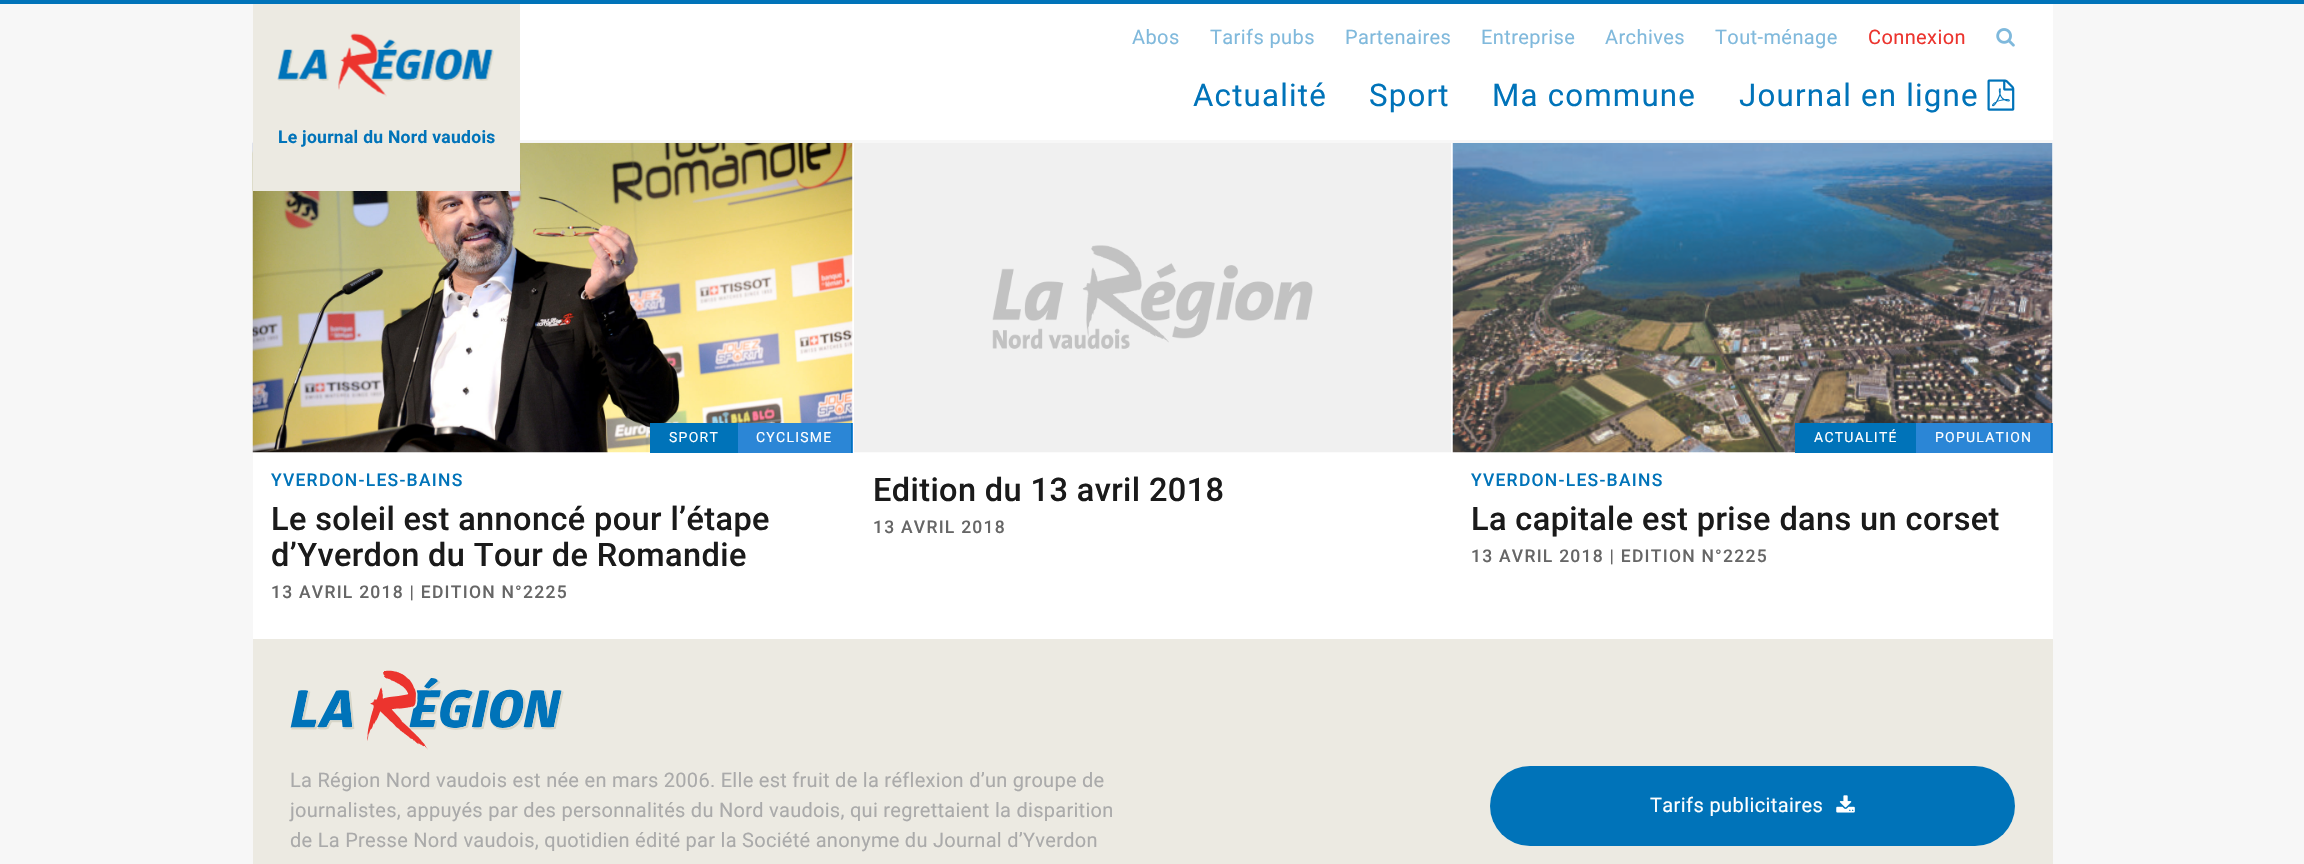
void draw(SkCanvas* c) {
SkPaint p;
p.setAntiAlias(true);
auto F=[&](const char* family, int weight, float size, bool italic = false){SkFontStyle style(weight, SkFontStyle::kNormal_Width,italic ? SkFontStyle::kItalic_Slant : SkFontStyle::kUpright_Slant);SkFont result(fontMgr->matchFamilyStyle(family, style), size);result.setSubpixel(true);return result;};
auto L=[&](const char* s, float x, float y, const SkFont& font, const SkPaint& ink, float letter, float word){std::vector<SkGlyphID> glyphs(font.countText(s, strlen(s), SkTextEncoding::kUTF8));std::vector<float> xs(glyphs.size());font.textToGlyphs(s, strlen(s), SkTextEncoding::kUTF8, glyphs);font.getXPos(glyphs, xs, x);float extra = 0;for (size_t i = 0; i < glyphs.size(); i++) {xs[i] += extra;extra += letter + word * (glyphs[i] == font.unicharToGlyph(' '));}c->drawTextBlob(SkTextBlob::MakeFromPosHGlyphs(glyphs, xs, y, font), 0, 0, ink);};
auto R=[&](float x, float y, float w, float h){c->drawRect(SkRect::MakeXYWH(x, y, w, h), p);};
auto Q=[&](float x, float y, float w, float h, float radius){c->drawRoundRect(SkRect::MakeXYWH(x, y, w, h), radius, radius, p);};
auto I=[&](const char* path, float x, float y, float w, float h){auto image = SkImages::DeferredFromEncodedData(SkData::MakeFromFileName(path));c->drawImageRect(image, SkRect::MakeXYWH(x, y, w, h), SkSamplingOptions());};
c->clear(0xfff7f7f7);
p.setColor(0xff0073b9);
R(0,0,2304,4);
p.setColor(0xffffffff);
R(520,4,1533,136);
R(253,143,1800,496);
I("4.png",252,142,601,311);
p.setColor(0xfff5f5f5);
R(520,142,333,1);
auto f1 = F("Roboto",400,20);
p.setColor(0xff80b9dc);
L("Abos",1132,44,f1,p,.4,0);
L("Tarifs pubs",1210,44,f1,p,.4,0);
L("Partenaires",1345,44,f1,p,.4,0);
L("Entreprise",1481,44,f1,p,.4,0);
L("Archives",1605,44,f1,p,.4,0);
L("Tout-ménage",1715,44,f1,p,.4,0);
p.setColor(0xffec342e);
L("Connexion",1868,44,f1,p,.4,0);
I("1.png",1996,28,19,19);
auto f2 = F("Roboto",400,31.25);
p.setColor(0xff0073b9);
L("Actualité",1193,106,f2,p,1.2,0);
L("Sport",1369,106,f2,p,1.2,0);
L("Ma commune",1492,106,f2,p,1.2,0);
L("Journal en ligne",1739,106,f2,p,1.2,0);
I("2.png",1987,79,28,32);
p.setColor(0xffeceae2);
R(253,4,267,187);
I("3.png",277,33,217,64);
auto f3 = F("Roboto",700,17.5);
p.setColor(0xff0073b9);
L("Le journal du Nord vaudois",278,143,f3,p,.28,0);
R(650,423,88,30);
auto f4 = F("Roboto",400,14);
p.setColor(0xffffffff);
L("SPORT",669,442,f4,p,1.25,0);
p.setColor(0xff2b86d6);
R(738,423,115,30);
p.setColor(0xff0073b9);
R(851,423,1,30);
p.setColor(0xffffffff);
L("CYCLISME",756,442,f4,p,1.25,0);
auto f5 = F("Roboto",500,17.5);
p.setColor(0xff0073b9);
L("YVERDON-LES-BAINS",271,486,f5,p,1.25,0);
auto f6 = F("Roboto",500,32.5);
p.setColor(0xff1a1a1a);
L("Le soleil est annoncé pour l’étape",271,530,f6,p,.4,0);
L("d’Yverdon du Tour de Romandie",271,566,f6,p,.4,0);
p.setColor(0xff666666);
L("13 AVRIL 2018 | EDITION N°2225",271,598,f5,p,1.25,0);
I("5.png",854,143,597,310);
p.setColor(0xff1a1a1a);
L("Edition du 13 avril 2018",873,501,f6,p,.4,0);
p.setColor(0xff666666);
L("13 AVRIL 2018",873,533,f5,p,1.25,0);
I("6.png",1452,143,601,310);
p.setColor(0xff0073b9);
R(1795,423,121,30);
p.setColor(0xffffffff);
L("ACTUALITÉ",1814,442,f4,p,1.25,0);
p.setColor(0xff2b86d6);
R(1916,423,137,30);
p.setColor(0xff0073b9);
R(2051,423,1,30);
p.setColor(0xffffffff);
L("POPULATION",1935,442,f4,p,1.25,0);
p.setColor(0xff0073b9);
L("YVERDON-LES-BAINS",1471,486,f5,p,1.25,0);
p.setColor(0xff1a1a1a);
L("La capitale est prise dans un corset",1471,530,f6,p,.4,0);
p.setColor(0xff666666);
L("13 AVRIL 2018 | EDITION N°2225",1471,562,f5,p,1.25,0);
p.setColor(0xffeceae2);
R(253,639,1800,225);
I("7.png",290,670,274,80);
p.setColor(0xffaaaaaa);
L("La Région Nord vaudois est née en mars 2006. Elle est fruit de la réflexion d’un groupe de",290,787,f1,p,.28,0);
L("journalistes, appuyés par des personnalités du Nord vaudois, qui regrettaient la disparition",290,817,f1,p,.28,0);
L("de La Presse Nord vaudois, quotidien édité par la Société anonyme du Journal d’Yverdon",290,847,f1,p,.28,0);
p.setColor(0xff0073b9);
Q(1490,766,525,80,40);
p.setColor(0xffffffff);
L("Tarifs publicitaires",1650,812,f1,p,.4,0);
I("8.png",1836,795,19,18);
}
